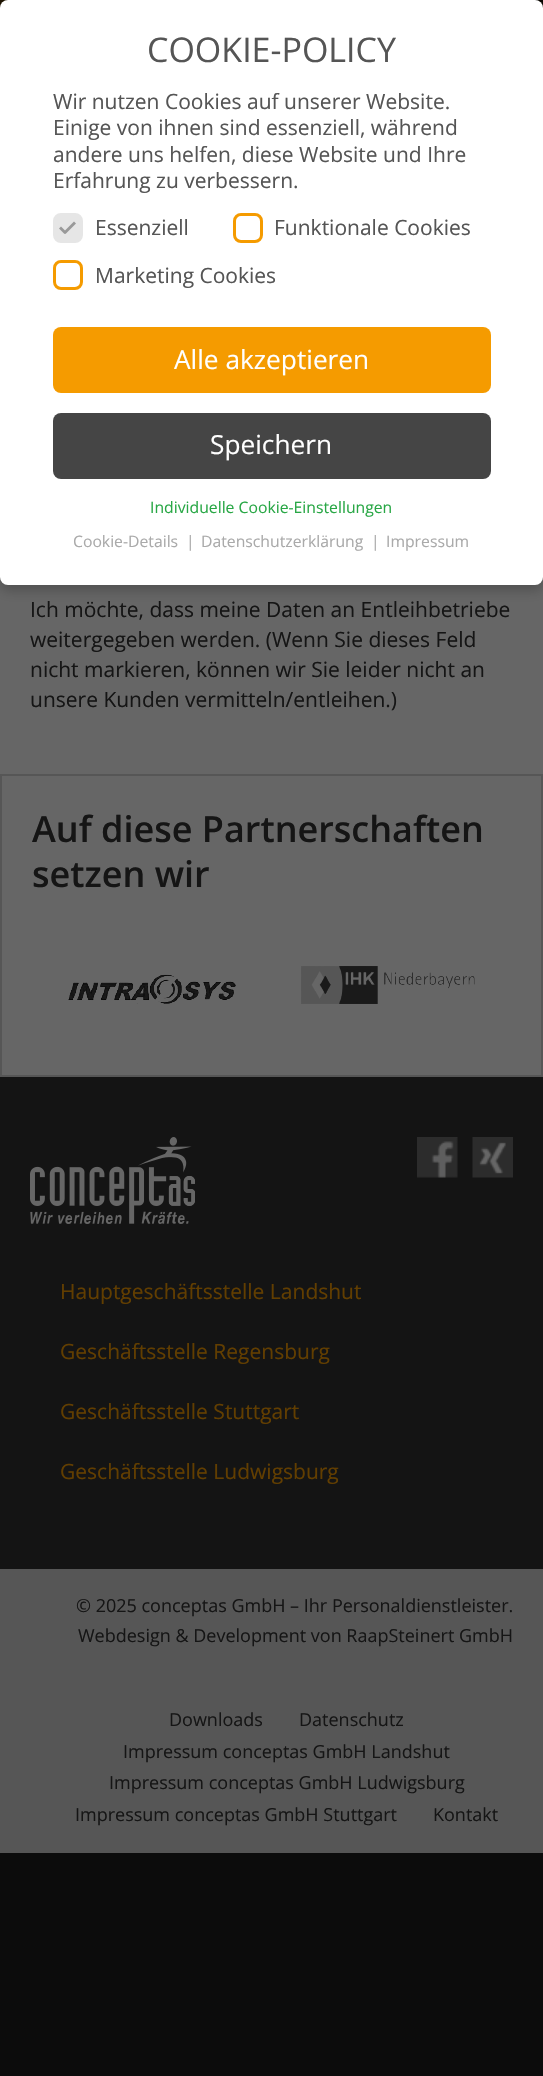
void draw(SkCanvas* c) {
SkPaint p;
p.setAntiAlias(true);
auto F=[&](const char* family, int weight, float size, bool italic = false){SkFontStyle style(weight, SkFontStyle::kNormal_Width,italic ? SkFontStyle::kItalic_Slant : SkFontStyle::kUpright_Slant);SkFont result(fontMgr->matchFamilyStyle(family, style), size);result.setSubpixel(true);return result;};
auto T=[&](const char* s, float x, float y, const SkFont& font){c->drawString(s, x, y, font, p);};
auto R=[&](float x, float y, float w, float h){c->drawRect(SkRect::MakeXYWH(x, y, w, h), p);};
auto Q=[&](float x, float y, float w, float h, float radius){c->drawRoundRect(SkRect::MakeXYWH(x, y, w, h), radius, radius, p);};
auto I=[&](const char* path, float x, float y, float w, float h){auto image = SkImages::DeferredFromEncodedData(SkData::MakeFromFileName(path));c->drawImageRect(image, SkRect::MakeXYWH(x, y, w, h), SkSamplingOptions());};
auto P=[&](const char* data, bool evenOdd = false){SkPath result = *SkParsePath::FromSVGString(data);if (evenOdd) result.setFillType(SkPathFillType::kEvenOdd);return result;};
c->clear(0xff0c0c0c);
I("1.png",0,0,543,8);
p.setColor(0xb3000000);
R(0,0,543,8);
p.setColor(0xff666666);
R(0,577,543,197);
p.setColor(0x33000000);
p.setMaskFilter(SkMaskFilter::MakeBlur(kNormal_SkBlurStyle, 6));
c->drawRoundRect(SkRect::MakeXYWH(0,6,543,585),8,8,p);
p.setMaskFilter(nullptr);
p.setColor(0xffffffff);
Q(0,0,543,585,8);
auto f1 = F("Open Sans",400,34);
p.setColor(0xff555555);
T("COOKIE-POLICY",147,62,f1);
auto f2 = F("Open Sans",400,21);
T("Wir nutzen Cookies auf unserer Website.",53,109,f2);
T("Einige von ihnen sind essenziell, während",53,135,f2);
T("andere uns helfen, diese Website und Ihre",53,162,f2);
T("Erfahrung zu verbessern.",53,188,f2);
p.setColor(0xffe6e6e6);
c->drawRoundRect(SkRect::MakeXYWH(54.5,214.5,27,27),6.5,6.5,p);
p.setStroke(true);
p.setStrokeWidth(3);
c->drawRoundRect(SkRect::MakeXYWH(54.5,214.5,27,27),6.5,6.5,p);
p.setStroke(false);
p.setColor(0xff999999);
c->drawPath(P("M74 221.5l2 2l-10.5 10.5l-2-2z"),p);
c->drawPath(P("M61 226.5l5.5 5.5l-2 2l-5.5-5.5z"),p);
p.setColor(0xff555555);
T("Essenziell",95,235,f2);
p.setStroke(true);
p.setColor(0xfff59b00);
c->drawRoundRect(SkRect::MakeXYWH(234.5,214.5,27,27),6.5,6.5,p);
p.setStroke(false);
p.setColor(0xff555555);
T("Funktionale Cookies",274,235,f2);
p.setStroke(true);
p.setColor(0xfff59b00);
c->drawRoundRect(SkRect::MakeXYWH(54.5,261.5,27,27),6.5,6.5,p);
p.setStroke(false);
p.setColor(0xff555555);
T("Marketing Cookies",95,283,f2);
p.setColor(0xfff59b00);
Q(53,327,438,66,8);
auto f3 = F("Open Sans",400,26.25);
p.setColor(0xffffffff);
T("Alle akzeptieren",174,369,f3);
p.setColor(0xff454545);
Q(53,413,438,66,8);
p.setColor(0xffffffff);
T("Speichern",210,454,f3);
auto f4 = F("Open Sans",400,15.75);
p.setColor(0xff28a745);
T("Individuelle Cookie-Einstellungen",150,513,f4);
p.setColor(0xffaaaaaa);
T("Cookie-Details",73,547,f4);
T("|",186,547,f4);
T("Datenschutzerklärung",201,547,f4);
T("|",371,547,f4);
T("Impressum",386,547,f4);
p.setColor(0xff151515);
T("Ich möchte, dass meine Daten an Entleihbetriebe",30,617,f2);
T("weitergegeben werden. (Wenn Sie dieses Feld",30,647,f2);
T("nicht markieren, können wir Sie leider nicht an",30,677,f2);
T("unsere Kunden vermitteln/entleihen.)",30,707,f2);
p.setColor(0xff666666);
c->drawRect(SkRect::MakeXYWH(1,775,541,301),p);
p.setStroke(true);
p.setStrokeWidth(2);
p.setColor(0xff565656);
c->drawRect(SkRect::MakeXYWH(1,775,541,301),p);
auto f5 = F("Open Sans",600,36);
p.setStroke(false);
p.setColor(0xff151515);
T("Auf diese Partnerschaften",32,842,f5);
T("setzen wir",32,887,f5);
I("2.png",68,974,168,30);
I("3.png",301,966,174,38);
p.setColor(0xff565656);
R(0,1569,543,284);
p.setColor(0xff141414);
R(0,1077,543,492);
I("4.png",30,1137,165,87);
I("5.png",417,1137,41,41);
I("6.png",472,1137,41,41);
p.setColor(0xff623e00);
T("Hauptgeschäftsstelle Landshut",60,1299,f2);
T("Geschäftsstelle Regensburg",60,1359,f2);
T("Geschäftsstelle Stuttgart",60,1419,f2);
T("Geschäftsstelle Ludwigsburg",60,1479,f2);
auto f6 = F("Open Sans",400,18);
p.setColor(0xff151515);
T("© 2025 conceptas GmbH – Ihr Personaldienstleister.",76,1612,f6);
T("Webdesign & Development von RaapSteinert GmbH",78,1642,f6);
T("Downloads",169,1726,f6);
T("Datenschutz",299,1726,f6);
T("Impressum conceptas GmbH Landshut",123,1758,f6);
T("Impressum conceptas GmbH Ludwigsburg",109,1789,f6);
T("Impressum conceptas GmbH Stuttgart",75,1821,f6);
T("Kontakt",433,1821,f6);
}
